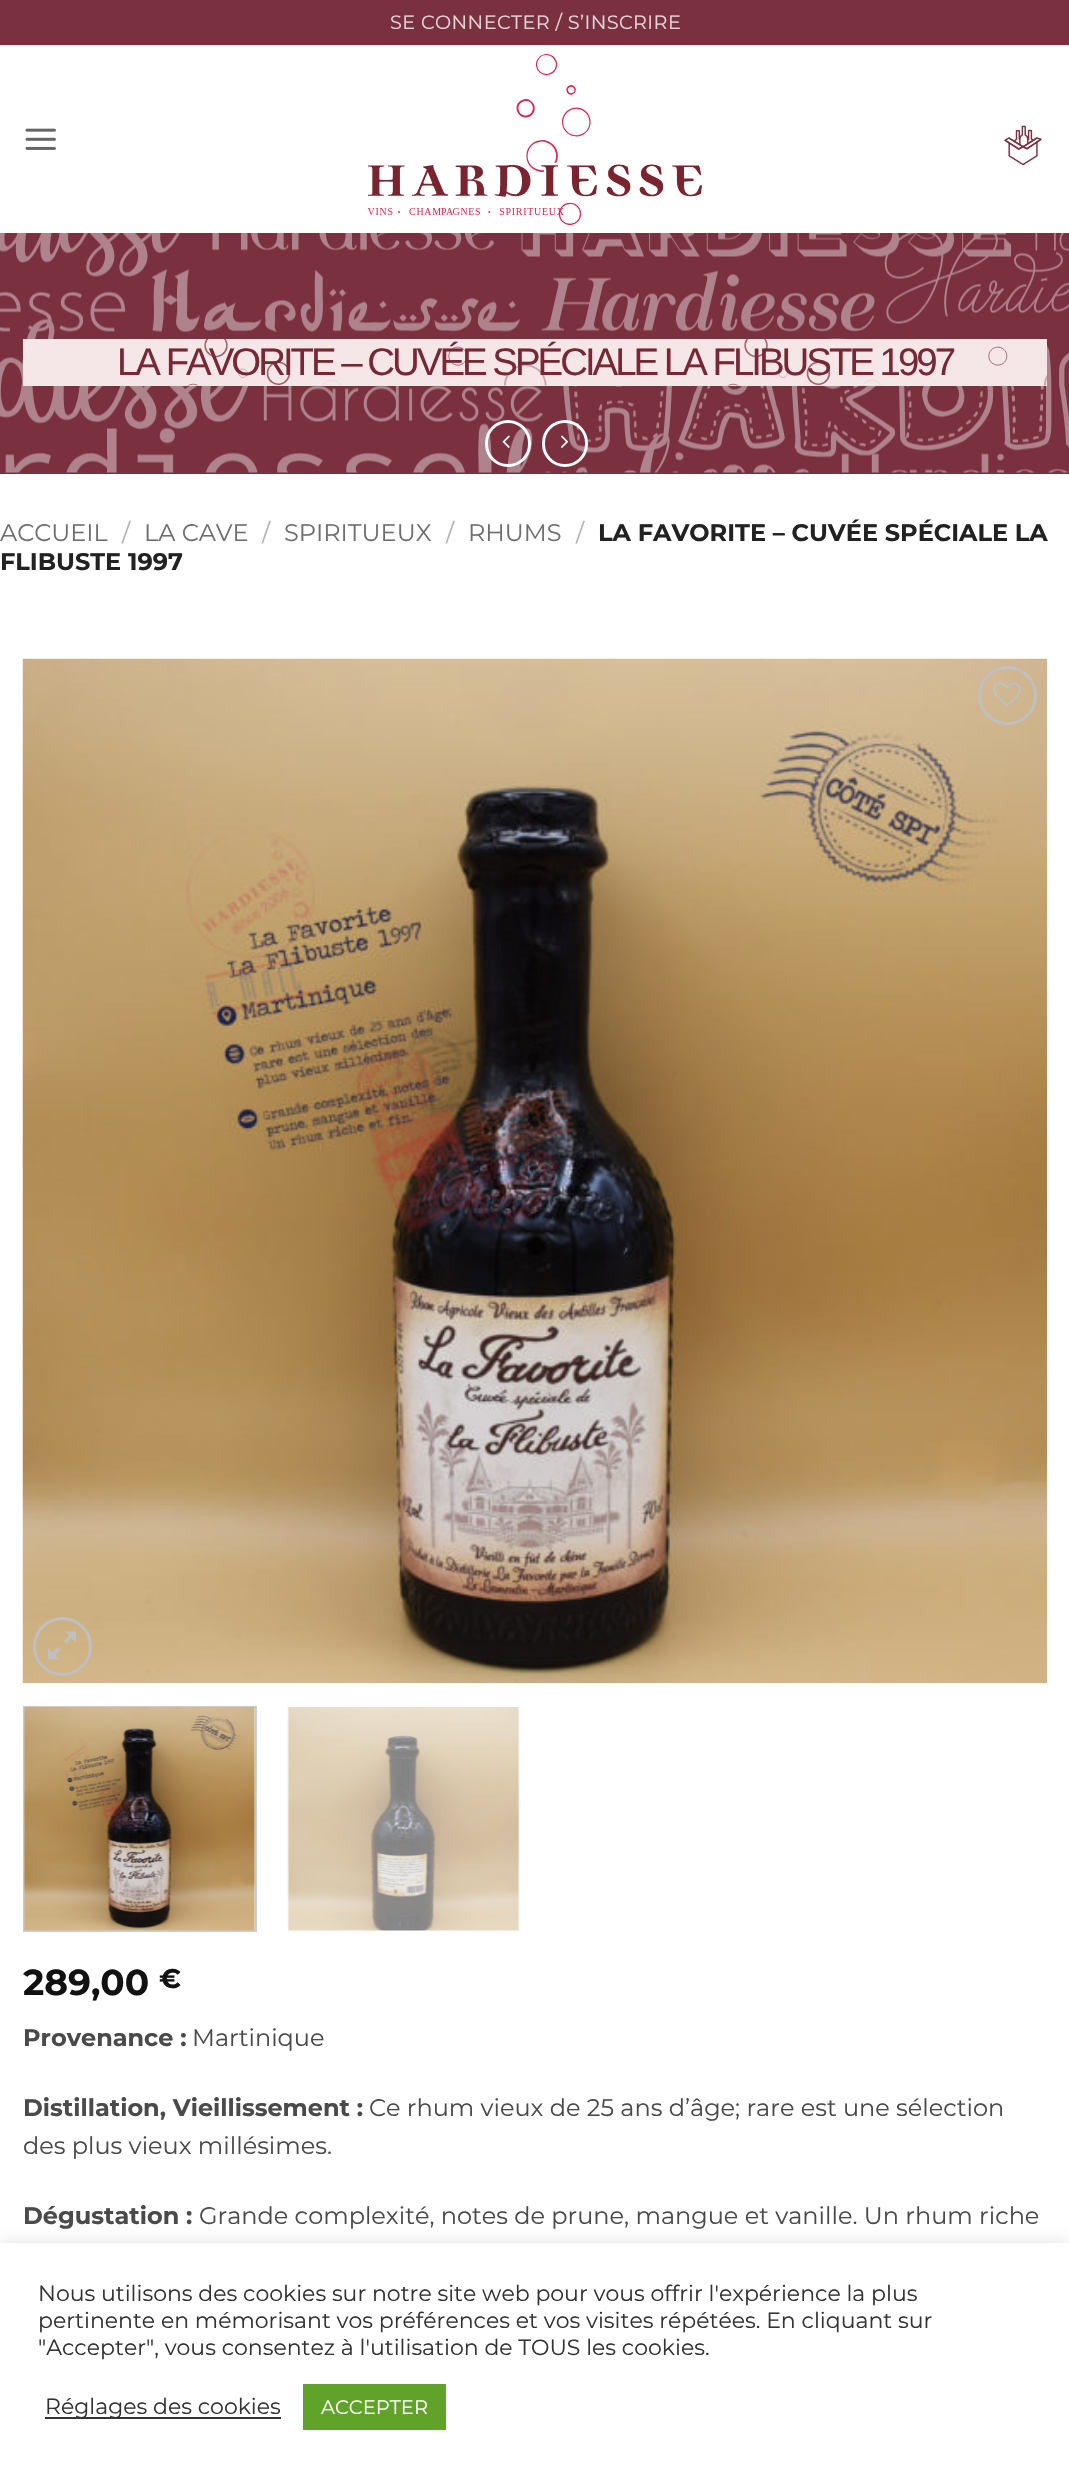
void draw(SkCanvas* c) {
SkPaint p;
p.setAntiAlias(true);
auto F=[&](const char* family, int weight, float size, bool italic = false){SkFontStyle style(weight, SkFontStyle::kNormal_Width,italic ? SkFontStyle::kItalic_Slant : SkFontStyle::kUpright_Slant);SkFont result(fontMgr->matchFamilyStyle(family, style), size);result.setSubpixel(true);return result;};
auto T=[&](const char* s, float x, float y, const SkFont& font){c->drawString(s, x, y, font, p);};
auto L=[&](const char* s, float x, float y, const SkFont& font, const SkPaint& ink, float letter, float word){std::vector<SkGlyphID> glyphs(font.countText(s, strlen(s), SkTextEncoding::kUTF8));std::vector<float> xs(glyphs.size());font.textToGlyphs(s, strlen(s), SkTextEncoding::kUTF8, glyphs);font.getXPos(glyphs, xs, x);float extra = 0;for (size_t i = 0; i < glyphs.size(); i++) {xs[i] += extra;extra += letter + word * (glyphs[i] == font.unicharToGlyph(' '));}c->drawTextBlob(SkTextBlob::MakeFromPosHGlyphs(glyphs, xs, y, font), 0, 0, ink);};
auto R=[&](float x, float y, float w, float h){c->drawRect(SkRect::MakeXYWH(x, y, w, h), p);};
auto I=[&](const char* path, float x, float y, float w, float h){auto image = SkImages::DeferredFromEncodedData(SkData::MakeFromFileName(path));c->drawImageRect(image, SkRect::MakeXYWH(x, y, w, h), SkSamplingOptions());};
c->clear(0xffffffff);
p.setColor(0xff7a303f);
R(0,0,1069,45);
auto f1 = F("Montserrat",400,19.25);
p.setColor(0xffe4d6d9);
L("SE CONNECTER / S’INSCRIRE",390,29,f1,p,.4,0);
I("1.png",25,128,31,22);
I("2.png",368,54,334,171);
I("3.png",1004,125,38,41);
p.setColor(0xff7a303f);
R(0,233,1069,241);
I("4.png",0,233,1069,240);
p.setColor(0xfff5e6e7);
R(23,339,1024,47);
I("5.png",187,339,860,47);
auto f2 = F("Liberation Sans",400,38.4);
p.setColor(0xff782835);
L("LA FAVORITE – CUVÉE SPÉCIALE LA FLIBUSTE 1997",117,375,f2,p,-3,0);
p.setStroke(true);
p.setStrokeWidth(3);
p.setColor(0xffffffff);
c->drawRoundRect(SkRect::MakeXYWH(486.5,421.5,43,44),21.5,21.5,p);
I("6.png",502,435,8,13);
c->drawRoundRect(SkRect::MakeXYWH(543.5,421.5,43,44),21.5,21.5,p);
I("7.png",561,435,8,13);
auto f3 = F("Montserrat",400,24);
p.setStroke(false);
p.setColor(0xff6e6e6e);
T("ACCUEIL",0,541,f3);
p.setColor(0xffb2b2b2);
T("/",122,541,f3);
p.setColor(0xff6e6e6e);
T("LA CAVE",144,541,f3);
p.setColor(0xffb2b2b2);
T("/",262,541,f3);
p.setColor(0xff6e6e6e);
T("SPIRITUEUX",284,541,f3);
p.setColor(0xffb2b2b2);
T("/",446,541,f3);
p.setColor(0xff6e6e6e);
T("RHUMS",468,541,f3);
p.setColor(0xffb2b2b2);
T("/",576,541,f3);
auto f4 = F("Montserrat",700,24);
p.setColor(0xff222222);
T("LA FAVORITE – CUVÉE SPÉCIALE LA",598,541,f4);
T("FLIBUSTE 1997",0,570,f4);
I("8.png",22,658,1025,1025);
p.setStroke(true);
p.setColor(0xffc0c0c0);
c->drawCircle(1007.5,695.5,28,p);
I("9.png",993,682,28,25);
c->drawCircle(62.5,1646.5,28,p);
I("10.png",48,1631,28,29);
p.setStrokeWidth(2);
p.setColor(0xffcccccc);
c->drawRect(SkRect::MakeXYWH(24,1707,232,224),p);
I("11.png",23,1707,233,224);
I("12.png",287,1707,233,224);
auto f5 = F("Montserrat",700,36);
p.setStroke(false);
p.setColor(0xff111111);
T("289,00",23,1995,f5);
auto f6 = F("Montserrat",700,27);
T("€",159,1988,f6);
p.setColor(0xff4a4a4a);
T("Provenance :",23,2046,f4);
T("Martinique",192,2046,f3);
T("Distillation, Vieillissement :",23,2116,f4);
T("Ce rhum vieux de 25 ans d’âge; rare est une sélection",369,2116,f3);
T("des plus vieux millésimes.",23,2154,f3);
T("Dégustation :",23,2224,f4);
T("Grande complexité, notes de prune, mangue et vanille. Un rhum riche",199,2224,f3);
p.setColor(0x4dacabab);
p.setMaskFilter(SkMaskFilter::MakeBlur(kNormal_SkBlurStyle, 7.5));
c->drawRect(SkRect::MakeXYWH(0,2241,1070,233),p);
p.setMaskFilter(nullptr);
p.setColor(0xffffffff);
R(0,2243,1069,232);
auto f7 = F("Montserrat",400,22);
p.setColor(0xff333333);
T("Nous utilisons des cookies sur notre site web pour vous offrir l'expérience la plus",38,2301,f7);
T("pertinente en mémorisant vos préférences et vos visites répétées. En cliquant sur",38,2328,f7);
T("\"Accepter\", vous consentez à l'utilisation de TOUS les cookies.",38,2355,f7);
R(45,2417,236,2);
T("Réglages des cookies",45,2414,f7);
p.setColor(0xff61a229);
R(303,2384,143,46);
auto f8 = F("Montserrat",400,19.5);
p.setColor(0xffffffff);
T("ACCEPTER",321,2414,f8);
}
